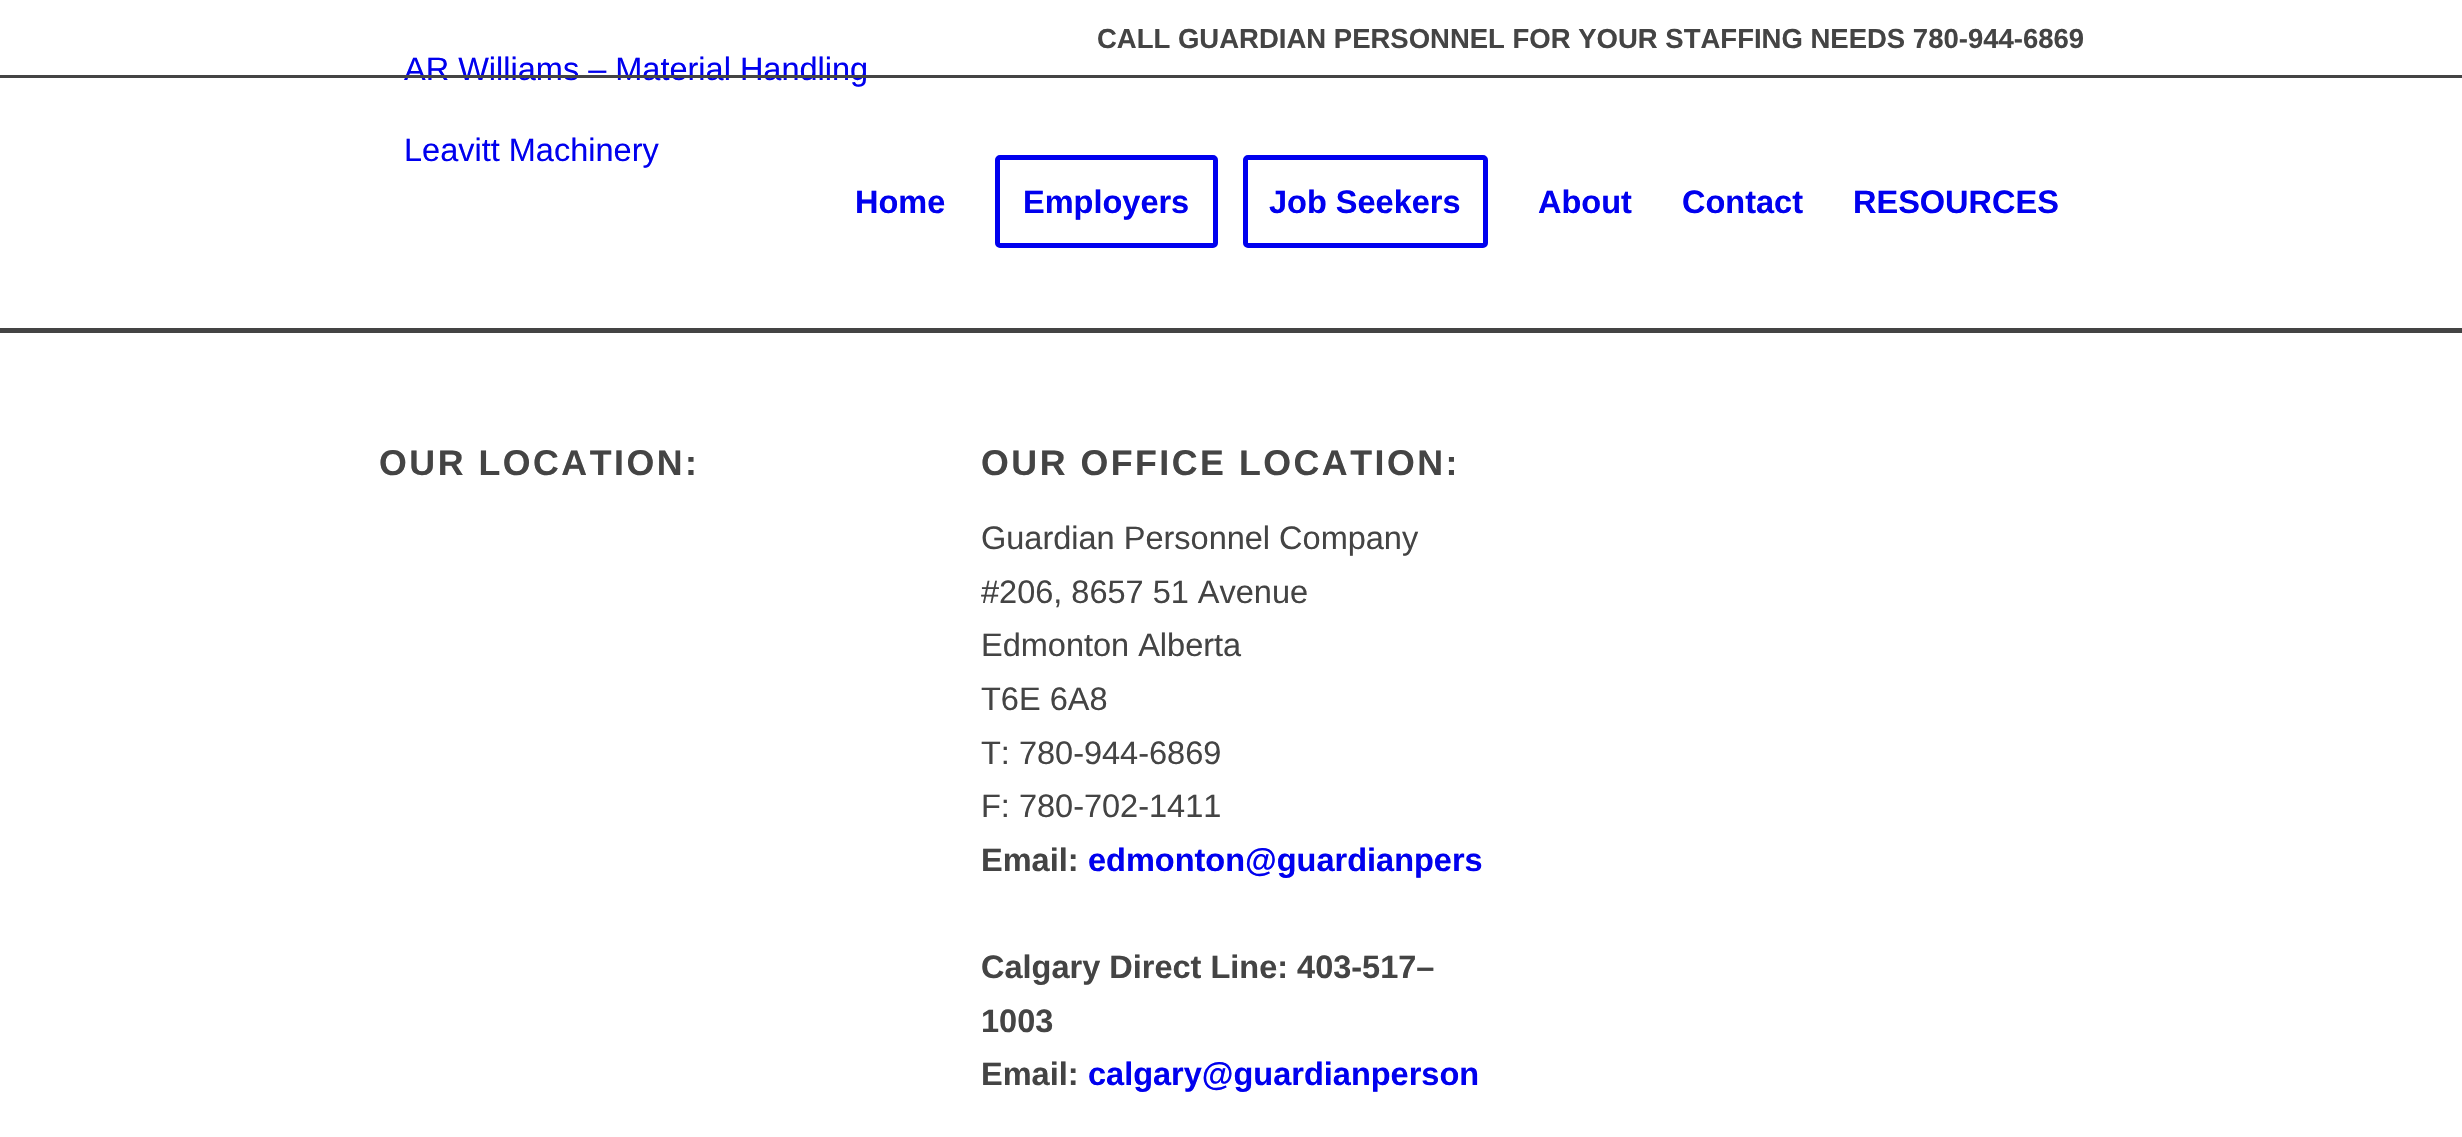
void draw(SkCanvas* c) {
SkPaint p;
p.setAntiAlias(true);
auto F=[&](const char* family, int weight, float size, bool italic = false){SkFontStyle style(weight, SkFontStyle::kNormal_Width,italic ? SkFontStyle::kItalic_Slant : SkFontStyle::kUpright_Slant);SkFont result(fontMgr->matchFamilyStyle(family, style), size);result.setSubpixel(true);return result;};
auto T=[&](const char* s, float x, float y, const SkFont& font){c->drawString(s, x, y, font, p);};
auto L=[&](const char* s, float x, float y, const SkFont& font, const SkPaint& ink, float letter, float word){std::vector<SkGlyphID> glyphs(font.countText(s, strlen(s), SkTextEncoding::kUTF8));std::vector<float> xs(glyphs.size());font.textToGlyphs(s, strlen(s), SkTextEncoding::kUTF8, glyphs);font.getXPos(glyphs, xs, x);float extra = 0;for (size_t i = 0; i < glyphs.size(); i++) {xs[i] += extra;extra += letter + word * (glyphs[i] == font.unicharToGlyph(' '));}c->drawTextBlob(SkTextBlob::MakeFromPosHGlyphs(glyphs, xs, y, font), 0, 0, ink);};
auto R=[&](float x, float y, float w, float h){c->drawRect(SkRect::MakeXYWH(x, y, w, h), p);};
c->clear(0xffffffff);
auto f1 = F("Liberation Sans",700,27.5);
p.setColor(0xff444444);
T("CALL GUARDIAN PERSONNEL FOR YOUR STAFFING NEEDS 780-944-6869",1097,48,f1);
auto f2 = F("Liberation Sans",400,32.5);
p.setColor(0xff0000ee);
T("AR Williams – Material Handling",404,80,f2);
p.setColor(0xff444444);
R(0,75,2462,3);
auto f3 = F("Liberation Sans",700,32.5);
p.setColor(0xff0000ee);
T("Home",855,213,f3);
p.setStroke(true);
p.setStrokeWidth(5);
c->drawRoundRect(SkRect::MakeXYWH(997.5,157.5,218,88),2.5,2.5,p);
p.setStroke(false);
T("Employers",1023,213,f3);
p.setStroke(true);
c->drawRoundRect(SkRect::MakeXYWH(1245.5,157.5,240,88),2.5,2.5,p);
p.setStroke(false);
T("Job Seekers",1269,213,f3);
T("About",1538,213,f3);
T("Contact",1682,213,f3);
T("RESOURCES",1853,213,f3);
T("Leavitt Machinery",404,161,f2);
p.setColor(0xff444444);
R(0,328,2462,5);
auto f4 = F("Liberation Sans",700,35.75);
L("OUR LOCATION:",379,475,f4,p,2.5,0);
L("OUR OFFICE LOCATION:",981,475,f4,p,2.5,0);
T("Guardian Personnel Company",981,549,f2);
T("#206, 8657 51 Avenue",981,603,f2);
T("Edmonton Alberta",981,656,f2);
T("T6E 6A8",981,710,f2);
T("T: 780-944-6869",981,764,f2);
T("F: 780-702-1411",981,817,f2);
T("Email:",981,871,f3);
p.setColor(0xff0000ee);
T("edmonton@guardianpers",1088,871,f3);
p.setColor(0xff444444);
T("Calgary Direct Line: 403-517–",981,978,f3);
T("1003",981,1032,f3);
T("Email:",981,1085,f3);
p.setColor(0xff0000ee);
T("calgary@guardianperson",1088,1085,f3);
}
